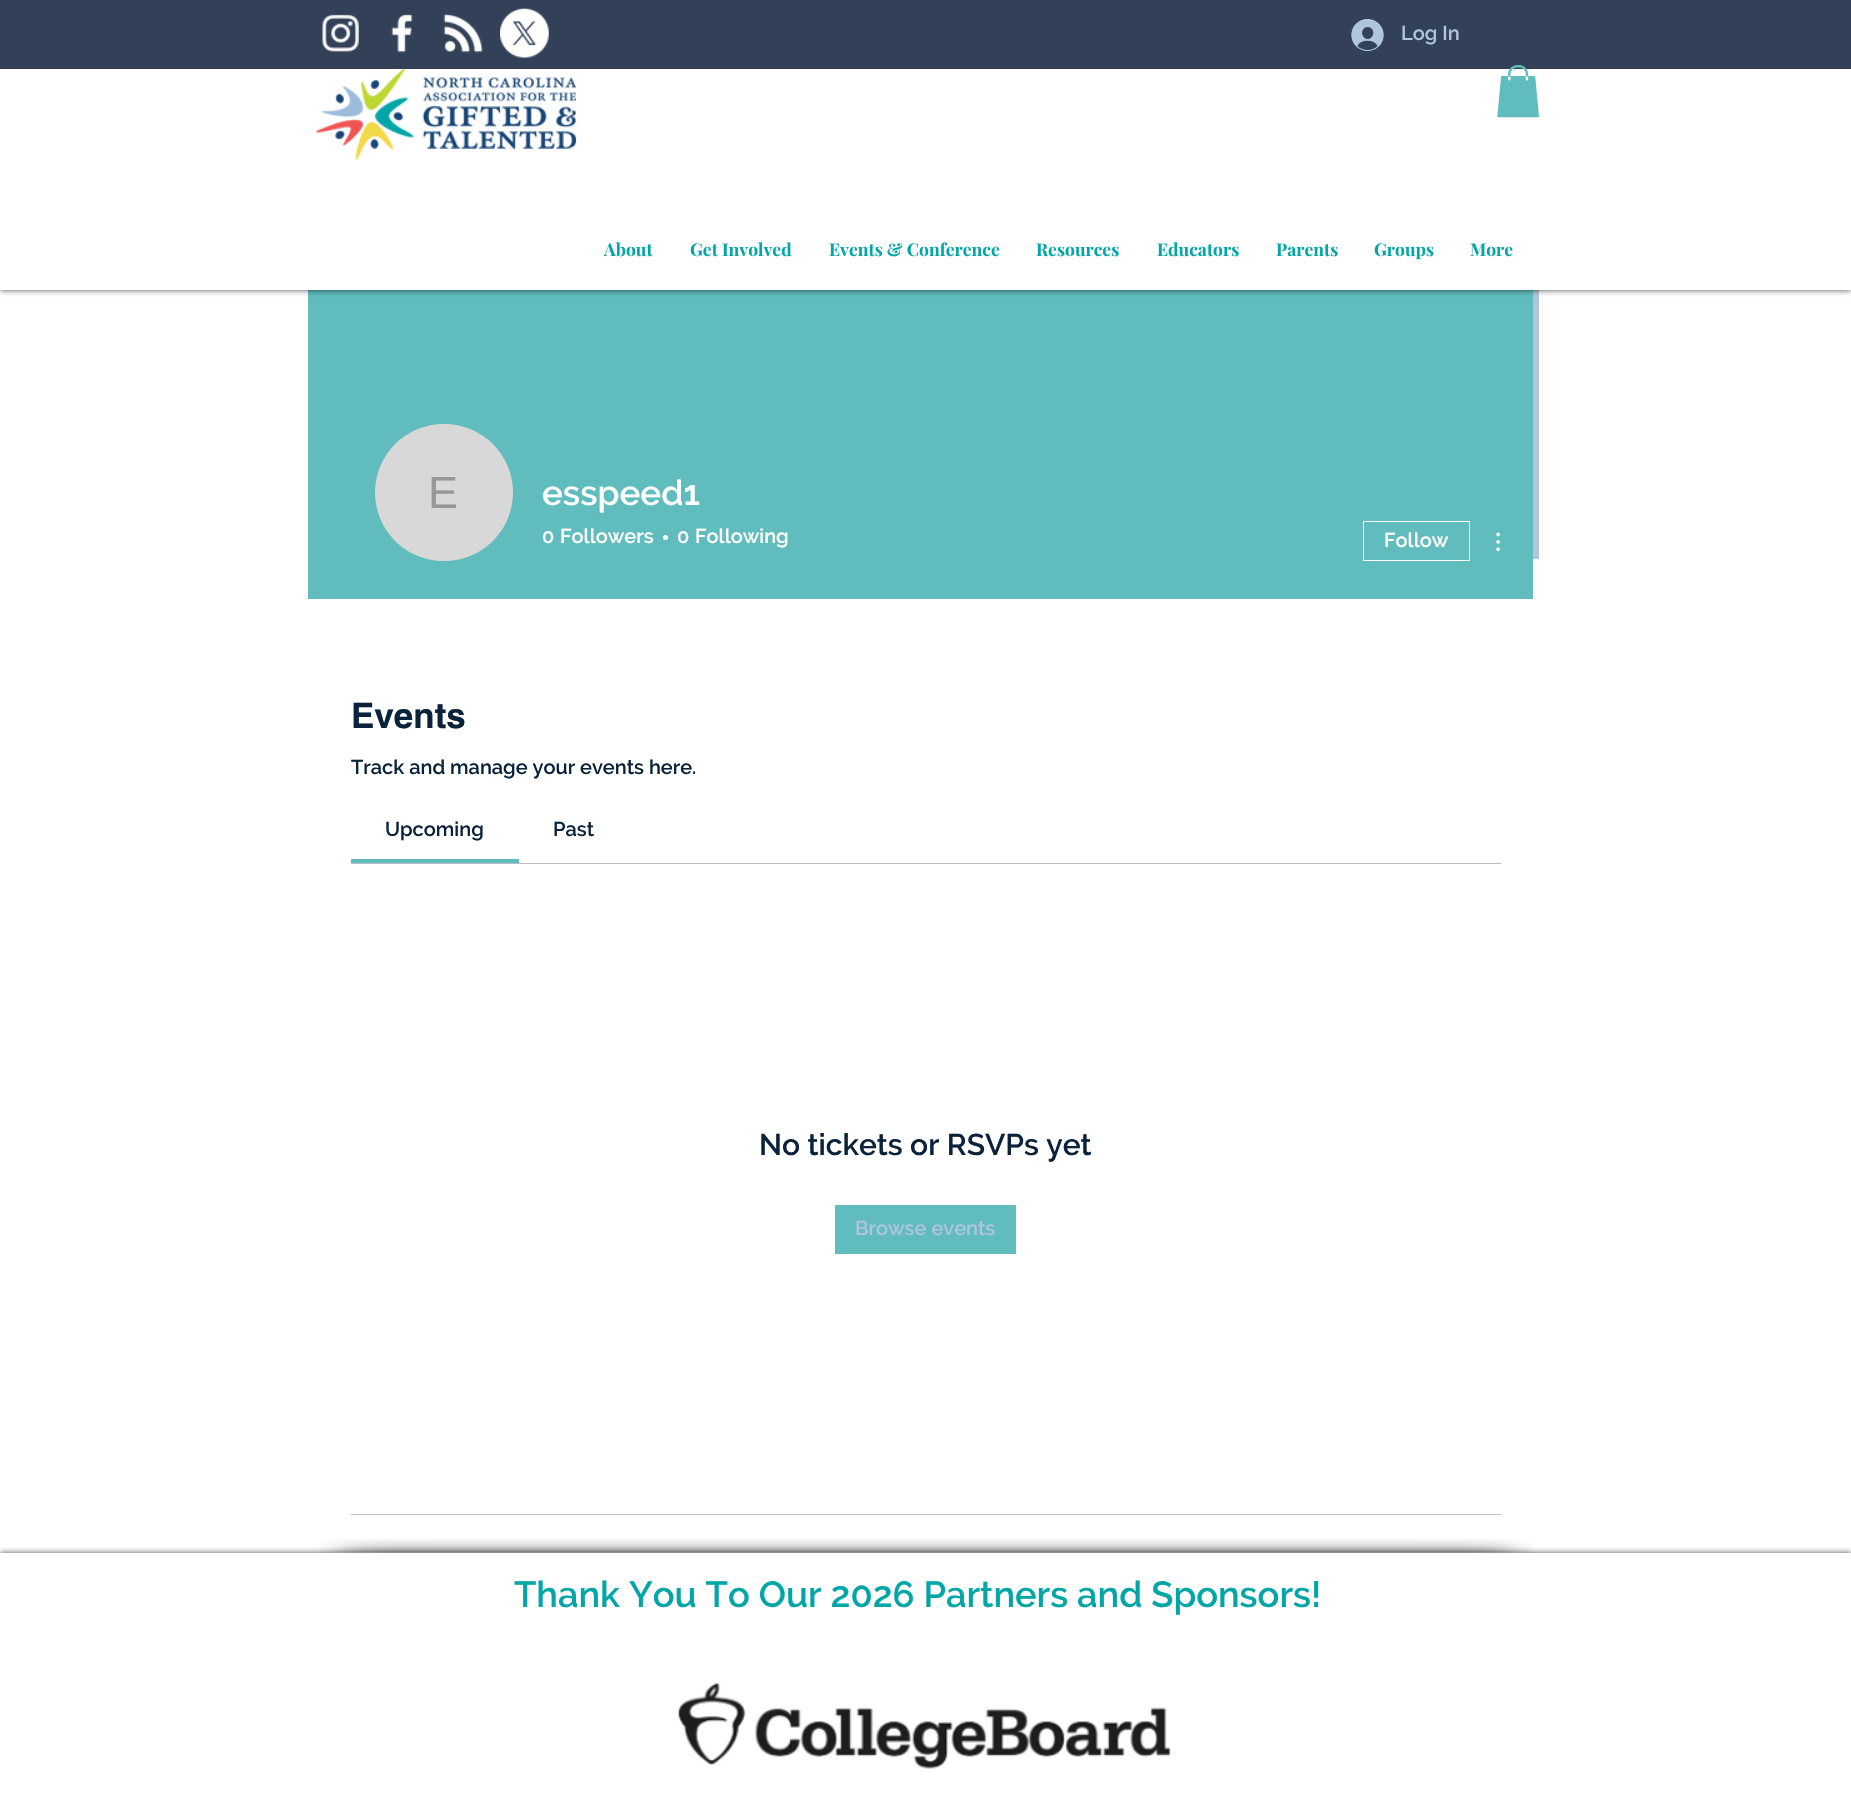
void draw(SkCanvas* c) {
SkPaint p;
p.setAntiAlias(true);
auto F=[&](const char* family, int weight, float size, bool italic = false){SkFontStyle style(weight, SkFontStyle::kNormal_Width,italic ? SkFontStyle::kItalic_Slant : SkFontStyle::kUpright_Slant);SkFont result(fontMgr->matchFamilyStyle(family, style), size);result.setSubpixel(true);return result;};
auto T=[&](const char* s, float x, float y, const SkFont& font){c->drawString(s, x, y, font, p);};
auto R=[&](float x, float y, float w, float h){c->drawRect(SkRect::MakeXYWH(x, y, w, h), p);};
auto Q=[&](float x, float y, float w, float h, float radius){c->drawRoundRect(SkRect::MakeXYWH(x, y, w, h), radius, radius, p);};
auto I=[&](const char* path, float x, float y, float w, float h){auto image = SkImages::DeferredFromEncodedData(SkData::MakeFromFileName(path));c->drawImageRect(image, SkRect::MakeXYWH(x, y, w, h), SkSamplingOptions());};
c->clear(0xffffffff);
p.setColor(0xff60bcbd);
R(308,290,1225,309);
p.setColor(0xffafc5dc);
R(1533,290,6,269);
p.setColor(0xb3000000);
p.setMaskFilter(SkMaskFilter::MakeBlur(kNormal_SkBlurStyle, 3));
c->drawRect(SkRect::MakeXYWH(0,0,1851,290),p);
p.setMaskFilter(nullptr);
p.setColor(0xffffffff);
R(0,69,1851,221);
p.setColor(0xff324158);
R(0,0,1851,69);
I("1.png",322,14,37,38);
I("2.png",391,14,22,39);
I("3.png",443,13,40,40);
I("4.png",500,8,49,50);
I("5.png",1351,19,33,32);
auto f1 = F("Raleway",600,20);
p.setColor(0xffafc5dc);
T("Log In",1401,40,f1);
I("6.png",316,68,261,92);
I("7.png",1497,65,42,53);
auto f2 = F("Playfair Display",700,17.5);
p.setColor(0xff03a6a7);
T("About",604,256,f2);
T("Get Involved",690,256,f2);
T("Events & Conference",829,256,f2);
T("Resources",1036,256,f2);
T("Educators",1157,256,f2);
T("Parents",1276,256,f2);
T("Groups",1374,256,f2);
T("More",1470,256,f2);
p.setColor(0xffd8d8d8);
Q(375,424,138,137,68.5);
auto f3 = F("Liberation Sans",400,45);
p.setColor(0xff979797);
T("E",428,508,f3);
auto f4 = F("Raleway",600,35);
p.setColor(0xffffffff);
T("esspeed1",542,505,f4);
T("0",542,543,f1);
T("Followers",560,543,f1);
c->drawCircle(665.5,537.5,2.5,p);
T("0",677,543,f1);
T("Following",695,543,f1);
p.setStroke(true);
p.setStrokeWidth(1);
c->drawRect(SkRect::MakeXYWH(1363.5,521.5,106,39),p);
p.setStroke(false);
T("Follow",1384,547,f1);
I("8.png",1496,532,4,20);
auto f5 = F("helvetica",700,35);
p.setColor(0xff0a223a);
T("Events",351,728,f5);
T("Track and manage your events here.",351,774,f1);
p.setColor(0xff60bcbd);
R(351,859,168,4);
p.setColor(0xff0a223a);
T("Upcoming",385,836,f1);
T("Past",553,836,f1);
p.setColor(0xffb6bdc4);
R(351,863,1150,1);
auto f6 = F("Raleway",600,30);
p.setColor(0xff0a223a);
T("No tickets or RSVPs yet",759,1155,f6);
p.setColor(0xff60bcbd);
R(835,1205,181,49);
p.setColor(0xffafc5dc);
T("Browse events",855,1235,f1);
p.setColor(0xffb6bdc4);
R(351,1514,1150,1);
c->save();
c->clipRect(SkRect::MakeXYWH(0,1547,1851,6));
p.setColor(0xb3000000);
p.setMaskFilter(SkMaskFilter::MakeBlur(kNormal_SkBlurStyle, 3));
c->drawRect(SkRect::MakeXYWH(0,1553,1851,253),p);
p.setMaskFilter(nullptr);
c->restore();
I("9.png",319,1539,120,14);
I("10.png",438,1538,976,15);
I("11.png",1413,1539,121,14);
auto f7 = F("Raleway",600,36.25);
p.setColor(0xff03a6a7);
T("Thank You To Our 2026 Partners and Sponsors!",514,1607,f7);
I("12.png",677,1682,494,87);
}
